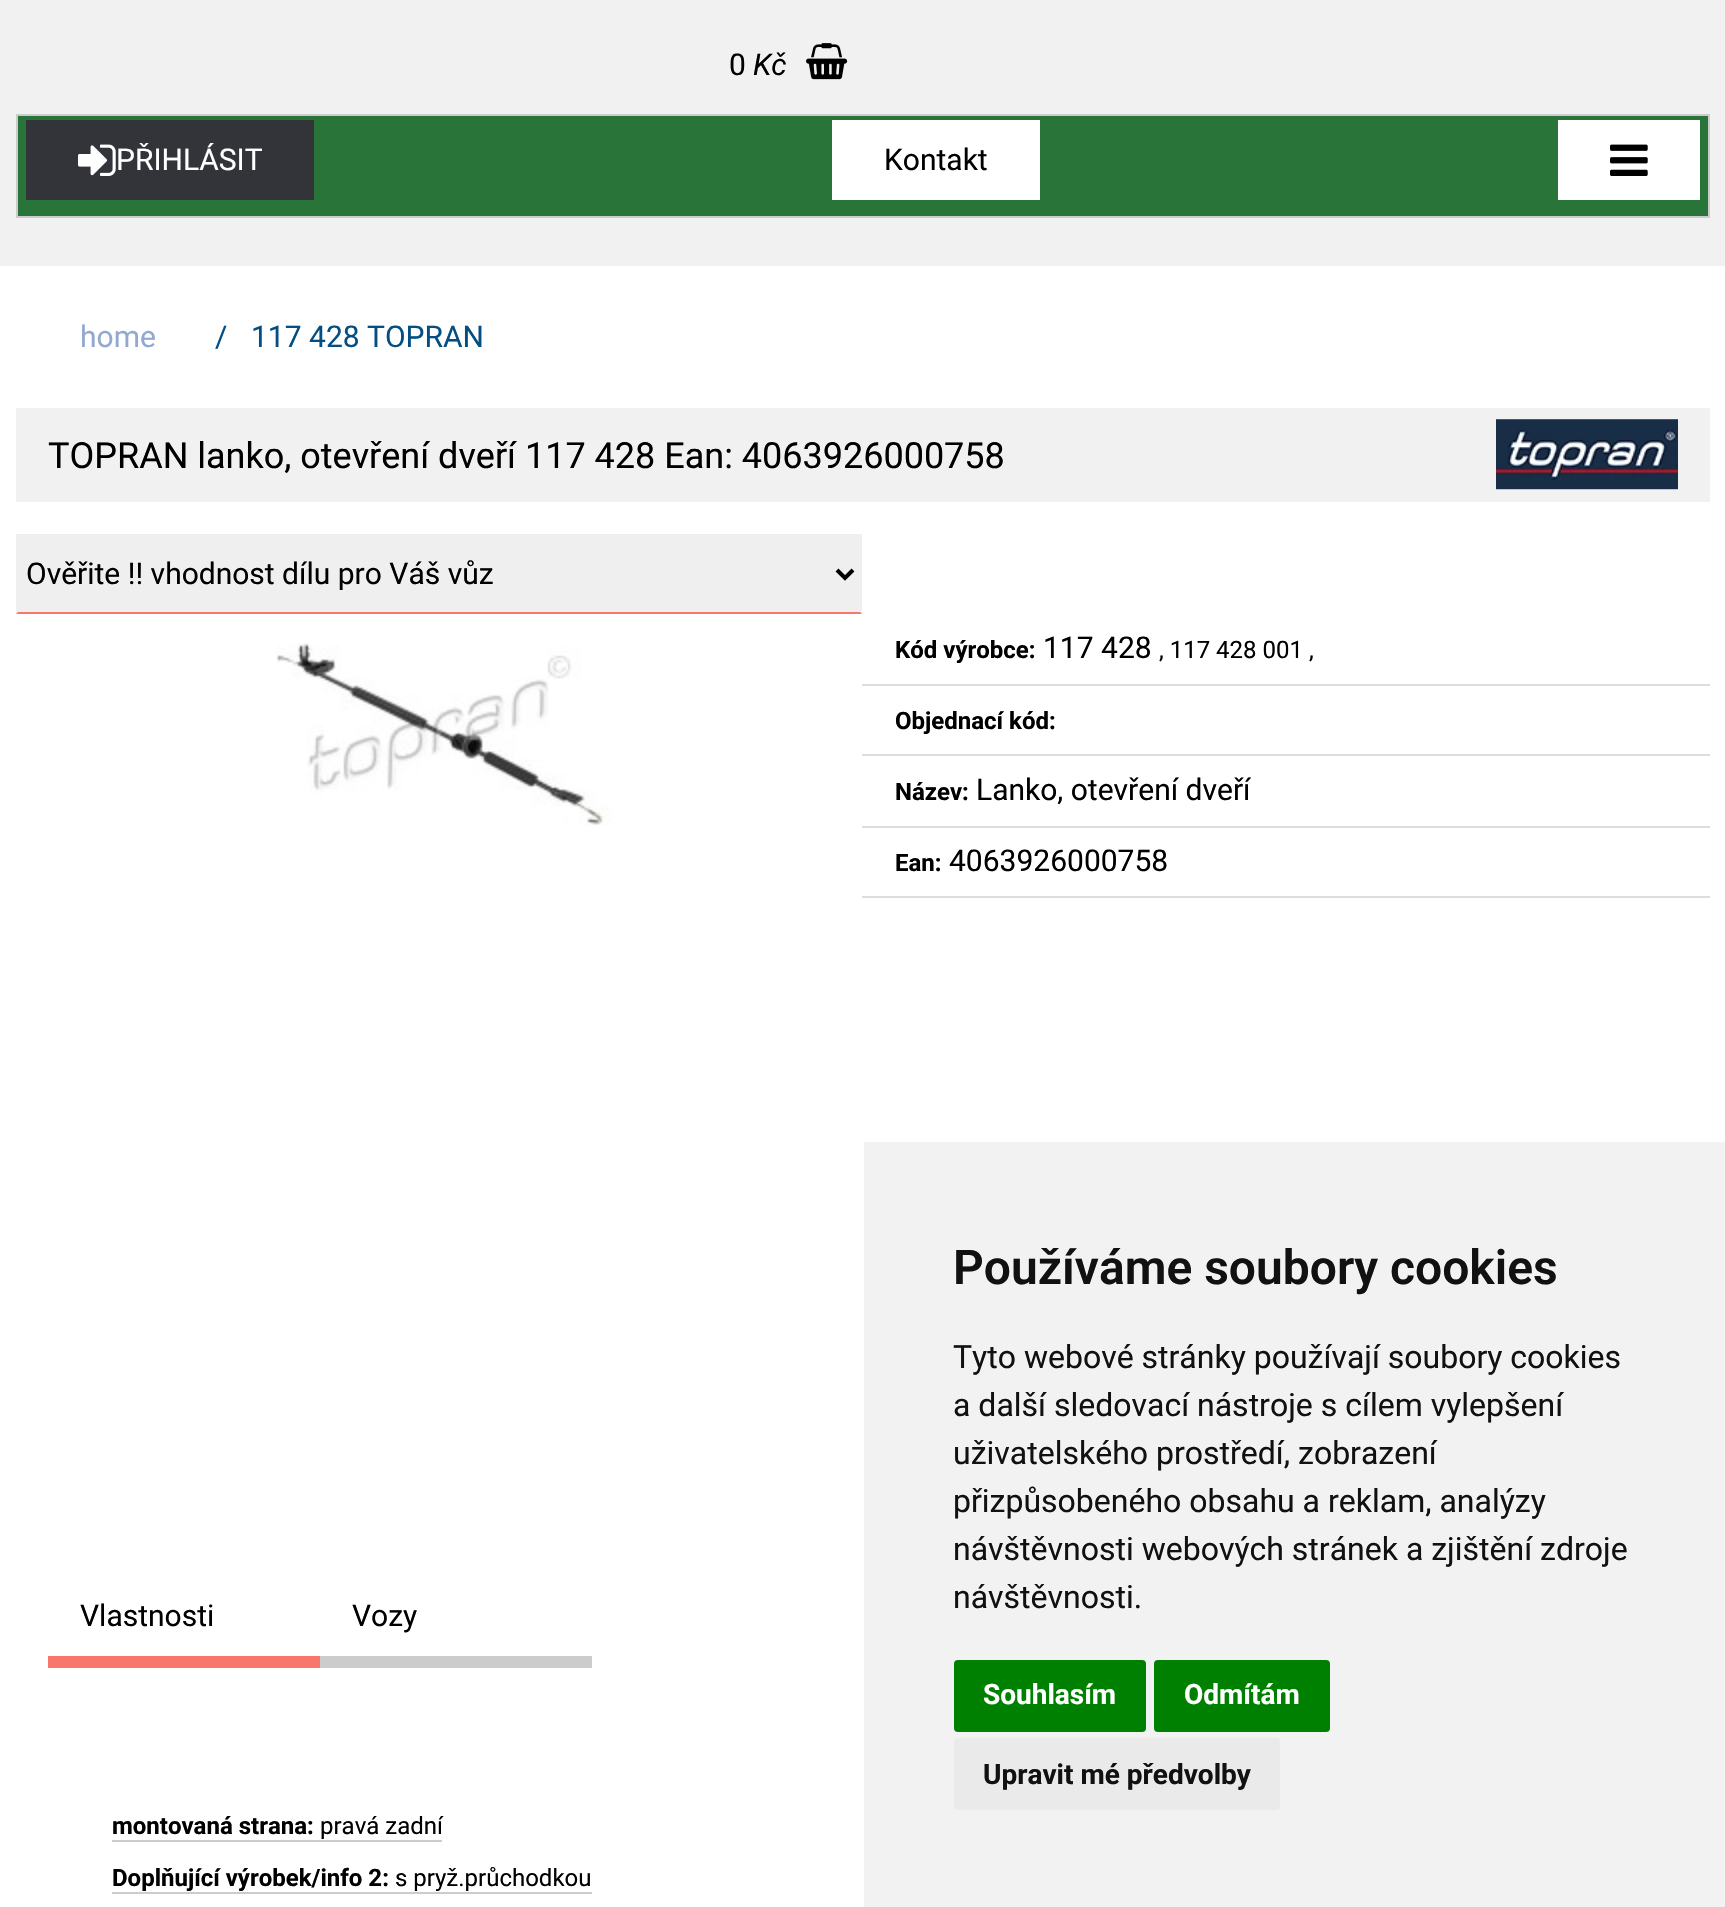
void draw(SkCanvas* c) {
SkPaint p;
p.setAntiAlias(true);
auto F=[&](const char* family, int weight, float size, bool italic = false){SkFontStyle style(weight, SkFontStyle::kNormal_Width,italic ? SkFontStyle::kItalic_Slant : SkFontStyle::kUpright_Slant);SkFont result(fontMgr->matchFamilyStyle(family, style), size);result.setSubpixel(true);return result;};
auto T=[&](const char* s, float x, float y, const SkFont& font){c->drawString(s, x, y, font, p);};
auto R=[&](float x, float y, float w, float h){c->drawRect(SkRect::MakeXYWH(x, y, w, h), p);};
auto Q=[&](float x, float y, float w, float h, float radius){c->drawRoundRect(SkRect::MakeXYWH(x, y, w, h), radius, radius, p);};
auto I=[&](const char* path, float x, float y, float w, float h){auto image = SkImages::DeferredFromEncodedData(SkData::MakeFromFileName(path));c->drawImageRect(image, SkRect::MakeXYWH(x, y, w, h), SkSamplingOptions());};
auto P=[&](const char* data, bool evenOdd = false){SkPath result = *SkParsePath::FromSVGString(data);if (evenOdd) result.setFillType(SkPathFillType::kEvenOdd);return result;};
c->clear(0xffffffff);
p.setColor(0xfff1f1f1);
R(0,0,1725,266);
auto f1 = F("Roboto",400,30);
p.setColor(0xff000000);
T("0",729,75,f1);
auto f2 = F("Roboto",400,30,true);
T("Kč",753,75,f2);
I("1.png",806,43,42,37);
p.setColor(0xff287439);
c->drawRect(SkRect::MakeXYWH(17,115,1692,102),p);
p.setStroke(true);
p.setStrokeWidth(2);
p.setColor(0xffcccccc);
c->drawRect(SkRect::MakeXYWH(17,115,1692,102),p);
p.setStroke(false);
p.setColor(0xff32343a);
R(26,120,288,80);
I("2.png",78,144,38,32);
p.setColor(0xffffffff);
T("PŘIHLÁSIT",116,170,f1);
R(832,120,208,80);
p.setColor(0xff000000);
T("Kontakt",884,170,f1);
p.setColor(0xffffffff);
R(1558,120,142,80);
I("3.png",1610,144,38,32);
p.setColor(0xff91a8d0);
T("home",80,347,f1);
p.setColor(0xff034f84);
T("/",215,347,f1);
T("117 428 TOPRAN",251,347,f1);
p.setColor(0xfff1f1f1);
R(16,408,1694,94);
auto f3 = F("Roboto",400,36);
p.setColor(0xff000000);
T("TOPRAN lanko, otevření dveří 117 428 Ean: 4063926000758",48,468,f3);
I("4.png",1496,419,182,71);
p.setColor(0xffefefef);
R(16,534,846,80);
p.setColor(0xfff7786b);
c->drawPath(P("M862 614h-846l2-2h842z"),p);
p.setStroke(true);
p.setStrokeWidth(4);
p.setColor(0xff000000);
c->drawPath(P("M837 570l8 8l8-8"),p);
p.setStroke(false);
T("Ověřite !! vhodnost dílu pro Váš vůz",26,584,f1);
I("5.png",276,643,336,183);
p.setColor(0xffdddddd);
R(862,684,848,2);
auto f4 = F("Roboto",700,24);
p.setColor(0xff000000);
T("Kód výrobce:",895,658,f4);
T("117 428",1043,658,f1);
auto f5 = F("Roboto",400,24);
T(", 117 428 001 ,",1159,658,f5);
p.setColor(0xffdddddd);
R(862,754,848,2);
p.setColor(0xff000000);
T("Objednací kód:",895,729,f4);
p.setColor(0xffdddddd);
R(862,826,848,2);
p.setColor(0xff000000);
T("Název:",895,800,f4);
T("Lanko, otevření dveří",976,800,f1);
p.setColor(0xffdddddd);
R(862,896,848,2);
p.setColor(0xff000000);
T("Ean:",895,871,f4);
T("4063926000758",949,871,f1);
p.setColor(0xfff7786b);
R(48,1656,272,12);
p.setColor(0xff000000);
T("Vlastnosti",80,1626,f1);
p.setColor(0xffcccccc);
R(320,1656,272,12);
p.setColor(0xff000000);
T("Vozy",352,1626,f1);
T("montovaná strana:",112,1834,f4);
T("pravá zadní",320,1834,f5);
p.setColor(0xffcccccc);
R(112,1840,330,2);
p.setColor(0xff000000);
T("Doplňující výrobek/info 2:",112,1886,f4);
p.setColor(0xffcccccc);
R(112,1892,480,2);
p.setColor(0xff000000);
T("s pryž.průchodkou",395,1886,f5);
p.setColor(0xfff2f2f2);
R(864,1142,861,765);
auto f6 = F("Roboto",600,48);
p.setColor(0xff111111);
T("Používáme soubory cookies",953,1284,f6);
auto f7 = F("Roboto",400,32);
T("Tyto webové stránky používají soubory cookies",953,1368,f7);
T("a další sledovací nástroje s cílem vylepšení",953,1416,f7);
T("uživatelského prostředí, zobrazení",953,1464,f7);
T("přizpůsobeného obsahu a reklam, analýzy",953,1512,f7);
T("návštěvnosti webových stránek a zjištění zdroje",953,1560,f7);
T("návštěvnosti.",953,1608,f7);
p.setColor(0xff008000);
Q(954,1660,192,72,4);
auto f8 = F("Roboto",700,28);
p.setColor(0xffffffff);
T("Souhlasím",983,1704,f8);
p.setColor(0xff008000);
Q(1154,1660,176,72,4);
p.setColor(0xffffffff);
T("Odmítám",1184,1704,f8);
p.setColor(0xffeaeaea);
Q(954,1738,326,72,4);
p.setColor(0xff111111);
T("Upravit mé předvolby",983,1784,f8);
}
